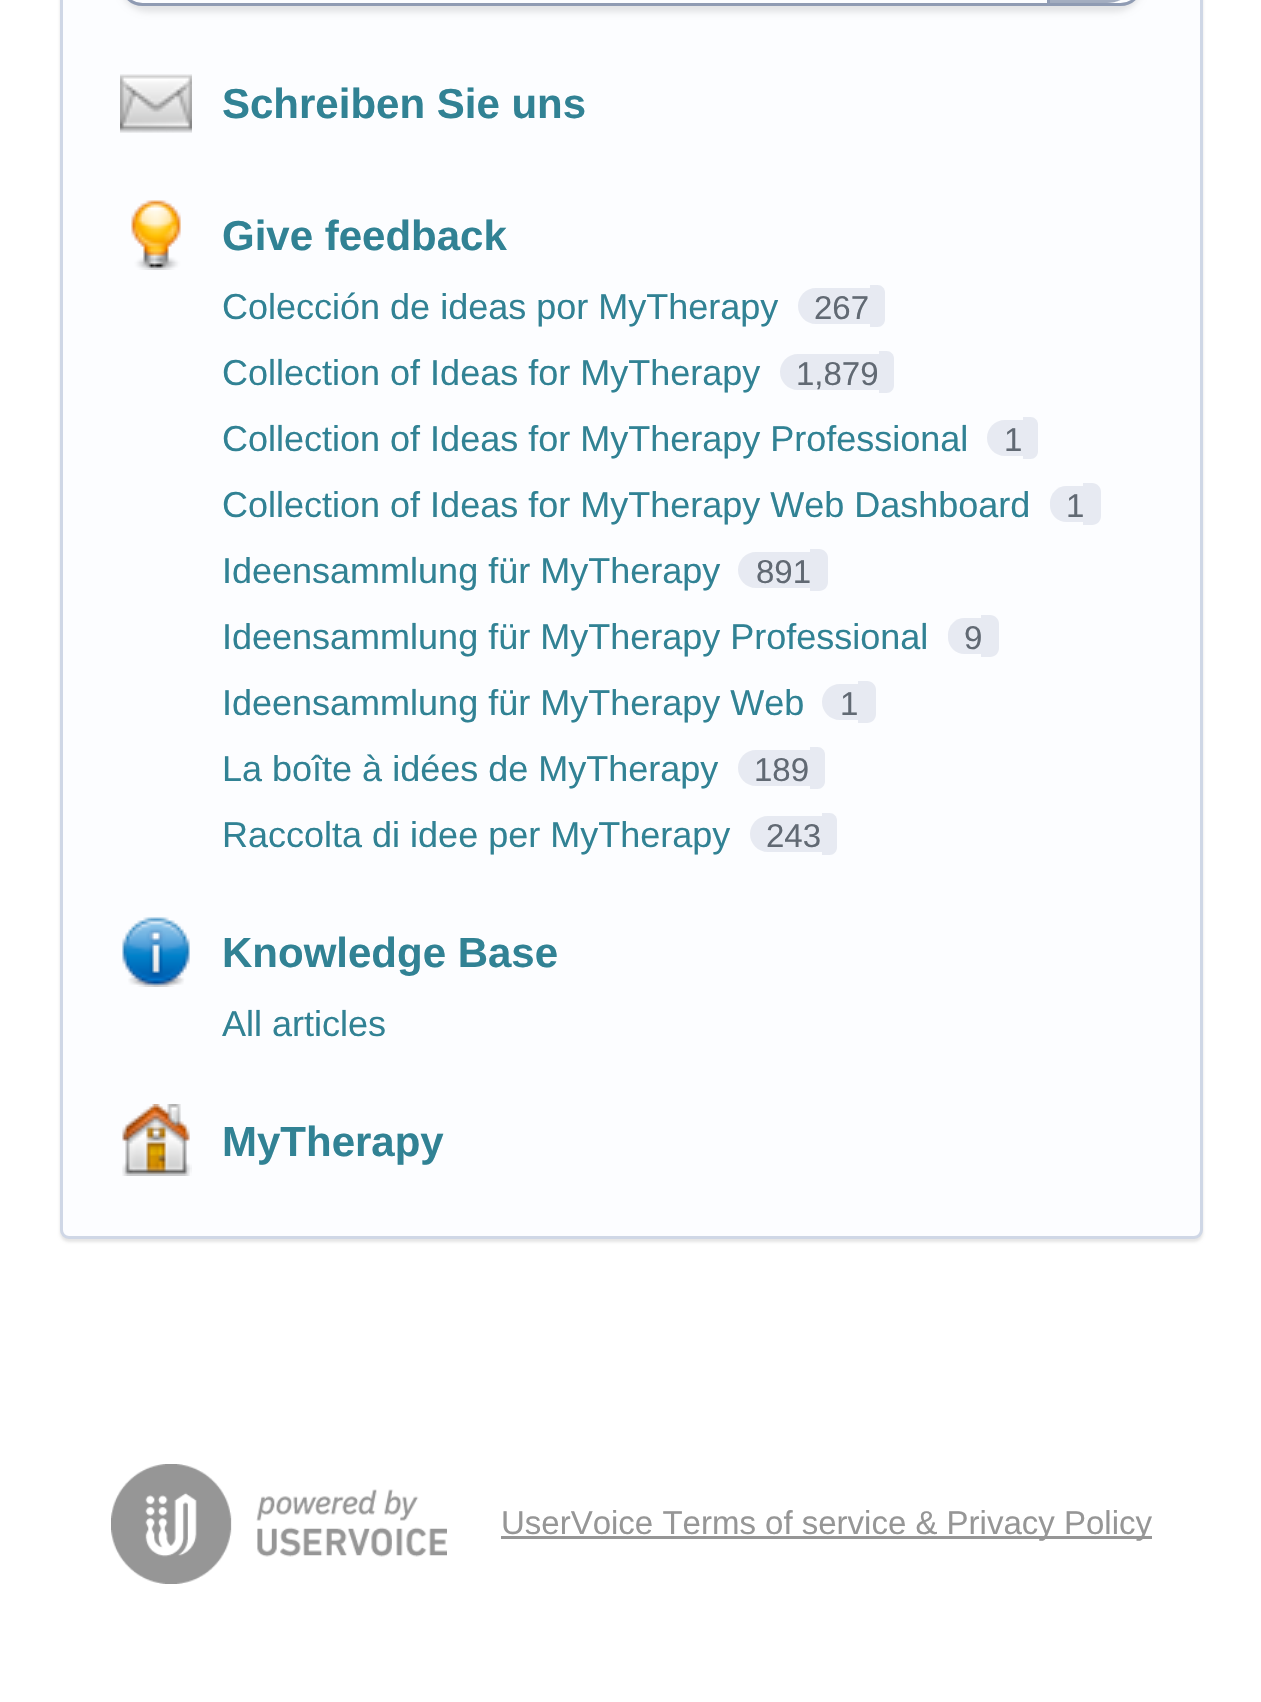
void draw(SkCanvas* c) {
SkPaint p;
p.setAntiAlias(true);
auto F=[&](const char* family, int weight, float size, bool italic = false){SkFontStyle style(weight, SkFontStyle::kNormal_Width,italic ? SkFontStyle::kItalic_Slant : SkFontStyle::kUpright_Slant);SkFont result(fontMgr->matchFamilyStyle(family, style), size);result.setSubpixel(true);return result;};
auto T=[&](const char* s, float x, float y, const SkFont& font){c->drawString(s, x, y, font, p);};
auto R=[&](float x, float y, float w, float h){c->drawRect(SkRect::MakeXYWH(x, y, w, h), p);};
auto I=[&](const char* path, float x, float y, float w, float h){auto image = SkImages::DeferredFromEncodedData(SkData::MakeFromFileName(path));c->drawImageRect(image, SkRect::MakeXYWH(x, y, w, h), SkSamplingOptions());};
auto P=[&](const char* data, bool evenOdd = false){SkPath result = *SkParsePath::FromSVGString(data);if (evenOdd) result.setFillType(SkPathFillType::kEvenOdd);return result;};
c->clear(0xffffffff);
p.setColor(0x1a000000);
p.setMaskFilter(SkMaskFilter::MakeBlur(kNormal_SkBlurStyle, 1.5));
c->drawRoundRect(SkRect::MakeXYWH(60,-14,1143,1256),9,9,p);
p.setMaskFilter(nullptr);
p.setColor(0xfffcfdff);
c->drawRoundRect(SkRect::MakeXYWH(61.5,-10.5,1140,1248),7.5,7.5,p);
p.setStroke(true);
p.setStrokeWidth(3);
p.setColor(0xffcfd7e6);
c->drawRoundRect(SkRect::MakeXYWH(61.5,-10.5,1140,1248),7.5,7.5,p);
p.setStroke(false);
p.setColor(0x1a000000);
p.setMaskFilter(SkMaskFilter::MakeBlur(kNormal_SkBlurStyle, 3));
c->drawRoundRect(SkRect::MakeXYWH(120,-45,1023,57),36,36,p);
p.setMaskFilter(nullptr);
p.setColor(0xfffcfdff);
c->drawRoundRect(SkRect::MakeXYWH(121.5,-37.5,1020,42),34.5,34.5,p);
p.setStroke(true);
p.setColor(0xff8f9bb3);
c->drawRoundRect(SkRect::MakeXYWH(121.5,-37.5,1020,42),34.5,34.5,p);
p.setStroke(false);
{
const SkColor colors[] = {0xffe6eaf2,0xffa2acbf};
const float stops[] = {0,1};
const SkPoint ends[] = {{1050,-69}, {1050,3}};
p.setShader(SkGradientShader::MakeLinear(ends, colors, stops, 2, SkTileMode::kClamp));
p.setAlpha(255);
}
c->drawPath(P("M1050-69h57c18 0 33 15 33 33v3c0 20-15 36-33 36h-57z"),p);
p.setShader(nullptr);
p.setColor(0xff8f9bb3);
c->drawPath(P("M1140-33v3c0 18-15 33-33 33c18 0 33-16 33-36zm-10-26c6 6 10 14 10 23c0-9-4-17-10-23z",true),p);
R(1047,0,3,3);
I("1.png",120,74,72,59);
auto f1 = F("Liberation Sans",700,42);
p.setColor(0xff318294);
T("Schreiben Sie uns",222,118,f1);
I("2.png",131,200,50,70);
T("Give feedback",222,250,f1);
auto f2 = F("Liberation Sans",400,36);
T("Colección de ideas por MyTherapy",222,319,f2);
p.setColor(0xffe7eaf2);
c->drawPath(P("M816 288h54v36h-54c-10 0-18-8-18-18c0-10 8-18 18-18z"),p);
auto f3 = F("Liberation Sans",400,33);
p.setColor(0xff616973);
T("267",814,319,f3);
p.setColor(0xffe7eaf2);
c->drawPath(P("M870 285h7.5c4 0 7.5 3.5 7.5 7.5v27c0 4-3.5 7.5-7.5 7.5h-7.5z"),p);
p.setColor(0xff318294);
T("Collection of Ideas for MyTherapy",222,385,f2);
p.setColor(0xffe7eaf2);
c->drawPath(P("M798 354h81v36h-81c-10 0-18-8-18-18c0-10 8-18 18-18z"),p);
p.setColor(0xff616973);
T("1,879",796,385,f3);
p.setColor(0xffe7eaf2);
c->drawPath(P("M879 351h7.5c4 0 7.5 3.5 7.5 7.5v27c0 4-3.5 7.5-7.5 7.5h-7.5z"),p);
p.setColor(0xff318294);
T("Collection of Ideas for MyTherapy Professional",222,451,f2);
p.setColor(0xffe7eaf2);
c->drawPath(P("M1005 420h18v36h-18c-10 0-18-8-18-18c0-10 8-18 18-18z"),p);
p.setColor(0xff616973);
T("1",1004,451,f3);
p.setColor(0xffe7eaf2);
c->drawPath(P("M1023 417h7.5c4 0 7.5 3.5 7.5 7.5v27c0 4-3.5 7.5-7.5 7.5h-7.5z"),p);
p.setColor(0xff318294);
T("Collection of Ideas for MyTherapy Web Dashboard",222,517,f2);
p.setColor(0xffe7eaf2);
c->drawPath(P("M1066.5 486h16.5v36h-16.5c-9 0-16.5-7.5-16.5-16.5v-3c0-9 7.5-16.5 16.5-16.5z"),p);
p.setColor(0xff616973);
T("1",1066,517,f3);
p.setColor(0xffe7eaf2);
c->drawPath(P("M1083 483h9c5 0 9 4 9 9v24c0 5-4 9-9 9h-9z"),p);
p.setColor(0xff318294);
T("Ideensammlung für MyTherapy",222,583,f2);
p.setColor(0xffe7eaf2);
c->drawPath(P("M756 552h54v36h-54c-10 0-18-8-18-18c0-10 8-18 18-18z"),p);
p.setColor(0xff616973);
T("891",756,583,f3);
p.setColor(0xffe7eaf2);
c->drawPath(P("M810 549h9c5 0 9 4 9 9v24c0 5-4 9-9 9h-9z"),p);
p.setColor(0xff318294);
T("Ideensammlung für MyTherapy Professional",222,649,f2);
p.setColor(0xffe7eaf2);
c->drawPath(P("M964.5 618h16.5v36h-16.5c-9 0-16.5-7.5-16.5-16.5v-3c0-9 7.5-16.5 16.5-16.5z"),p);
p.setColor(0xff616973);
T("9",964,649,f3);
p.setColor(0xffe7eaf2);
c->drawPath(P("M981 615h9c5 0 9 4 9 9v24c0 5-4 9-9 9h-9z"),p);
p.setColor(0xff318294);
T("Ideensammlung für MyTherapy Web",222,715,f2);
p.setColor(0xffe7eaf2);
c->drawPath(P("M840 684h18v36h-18c-10 0-18-8-18-18c0-10 8-18 18-18z"),p);
p.setColor(0xff616973);
T("1",840,715,f3);
p.setColor(0xffe7eaf2);
c->drawPath(P("M858 681h9c5 0 9 4 9 9v24c0 5-4 9-9 9h-9z"),p);
p.setColor(0xff318294);
T("La boîte à idées de MyTherapy",222,781,f2);
p.setColor(0xffe7eaf2);
c->drawPath(P("M756 750h54v36h-54c-10 0-18-8-18-18c0-10 8-18 18-18z"),p);
p.setColor(0xff616973);
T("189",754,781,f3);
p.setColor(0xffe7eaf2);
c->drawPath(P("M810 747h7.5c4 0 7.5 3.5 7.5 7.5v27c0 4-3.5 7.5-7.5 7.5h-7.5z"),p);
p.setColor(0xff318294);
T("Raccolta di idee per MyTherapy",222,847,f2);
p.setColor(0xffe7eaf2);
c->drawPath(P("M768 816h54v36h-54c-10 0-18-8-18-18c0-10 8-18 18-18z"),p);
p.setColor(0xff616973);
T("243",766,847,f3);
p.setColor(0xffe7eaf2);
c->drawPath(P("M822 813h7.5c4 0 7.5 3.5 7.5 7.5v27c0 4-3.5 7.5-7.5 7.5h-7.5z"),p);
I("3.png",122,917,68,70);
p.setColor(0xff318294);
T("Knowledge Base",222,967,f1);
T("All articles",222,1036,f2);
I("4.png",122,1104,70,72);
T("MyTherapy",222,1156,f1);
I("5.png",111,1464,336,120);
p.setColor(0xff969696);
R(501,1536,651,3);
T("UserVoice Terms of service & Privacy Policy",501,1534,f3);
}
